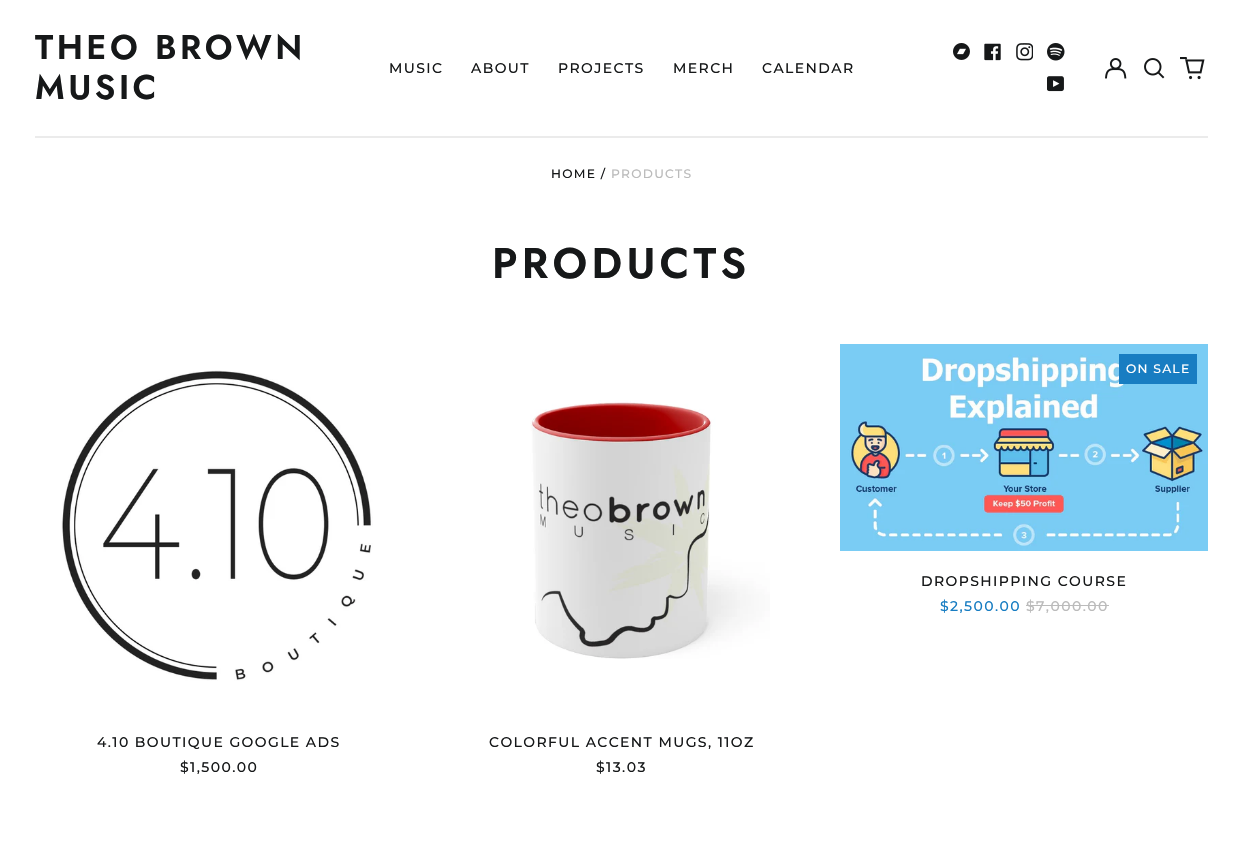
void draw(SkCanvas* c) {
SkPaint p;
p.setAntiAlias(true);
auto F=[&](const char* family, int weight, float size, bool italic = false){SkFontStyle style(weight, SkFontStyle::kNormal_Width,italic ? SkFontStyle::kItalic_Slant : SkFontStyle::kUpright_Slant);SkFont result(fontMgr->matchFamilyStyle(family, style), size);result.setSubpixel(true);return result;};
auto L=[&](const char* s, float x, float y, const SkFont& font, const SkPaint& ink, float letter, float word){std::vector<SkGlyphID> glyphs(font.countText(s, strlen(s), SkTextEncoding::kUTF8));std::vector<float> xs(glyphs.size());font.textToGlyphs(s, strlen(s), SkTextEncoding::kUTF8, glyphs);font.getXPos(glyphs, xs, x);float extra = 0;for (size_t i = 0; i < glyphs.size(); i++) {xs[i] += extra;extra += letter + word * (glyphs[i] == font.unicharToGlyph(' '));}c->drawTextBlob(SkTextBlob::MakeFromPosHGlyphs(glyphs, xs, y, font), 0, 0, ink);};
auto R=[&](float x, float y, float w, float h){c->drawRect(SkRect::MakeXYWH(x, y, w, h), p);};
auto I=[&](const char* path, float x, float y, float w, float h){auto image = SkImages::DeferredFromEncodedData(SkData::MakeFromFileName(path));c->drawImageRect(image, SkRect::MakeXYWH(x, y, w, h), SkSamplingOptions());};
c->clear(0xffffffff);
p.setColor(0xffebebeb);
R(35,136,1173,2);
auto f1 = F("Jost",600,34.25);
p.setColor(0xff161819);
L("THEO BROWN",35,59,f1,p,3.5,0);
L("MUSIC",35,99,f1,p,3.5,0);
auto f2 = F("Montserrat",500,14);
L("MUSIC",389,73,f2,p,1.4,0);
L("ABOUT",471,73,f2,p,1.4,0);
L("PROJECTS",558,73,f2,p,1.4,0);
L("MERCH",673,73,f2,p,1.4,0);
L("CALENDAR",762,73,f2,p,1.4,0);
I("1.png",953,43,17,17);
I("2.png",984,43,17,18);
I("3.png",1016,43,17,18);
I("4.png",1047,43,18,18);
I("5.png",1047,76,17,16);
I("6.png",1105,58,22,21);
I("7.png",1144,58,21,21);
I("8.png",1180,57,25,23);
auto f3 = F("Montserrat",500,12.25);
L("HOME /",551,178,f3,p,1.25,0);
p.setColor(0xffbbbbbb);
L("PRODUCTS",611,178,f3,p,1.25,0);
auto f4 = F("Jost",600,42.75);
p.setColor(0xff161819);
L("PRODUCTS",492,278,f4,p,4.25,0);
I("9.png",840,344,368,207);
p.setColor(0xff187dc2);
R(1119,354,78,30);
p.setColor(0xffffffff);
L("ON SALE",1126,373,f3,p,1.25,0);
p.setColor(0xff161819);
L("DROPSHIPPING COURSE",921,586,f2,p,1.4,0);
p.setColor(0xff187dc2);
L("$2,500.00",940,611,f2,p,1.4,0);
p.setColor(0xffbbbbbb);
L("$7,000.00",1026,611,f2,p,1.4,0);
R(1026,605,83,1);
I("10.png",61,370,312,311);
p.setColor(0xff161819);
L("4.10 BOUTIQUE GOOGLE ADS",97,747,f2,p,1.4,0);
L("$1,500.00",180,772,f2,p,1.4,0);
I("11.png",530,400,240,259);
L("COLORFUL ACCENT MUGS, 11OZ",489,747,f2,p,1.4,0);
L("$13.03",596,772,f2,p,1.4,0);
}
